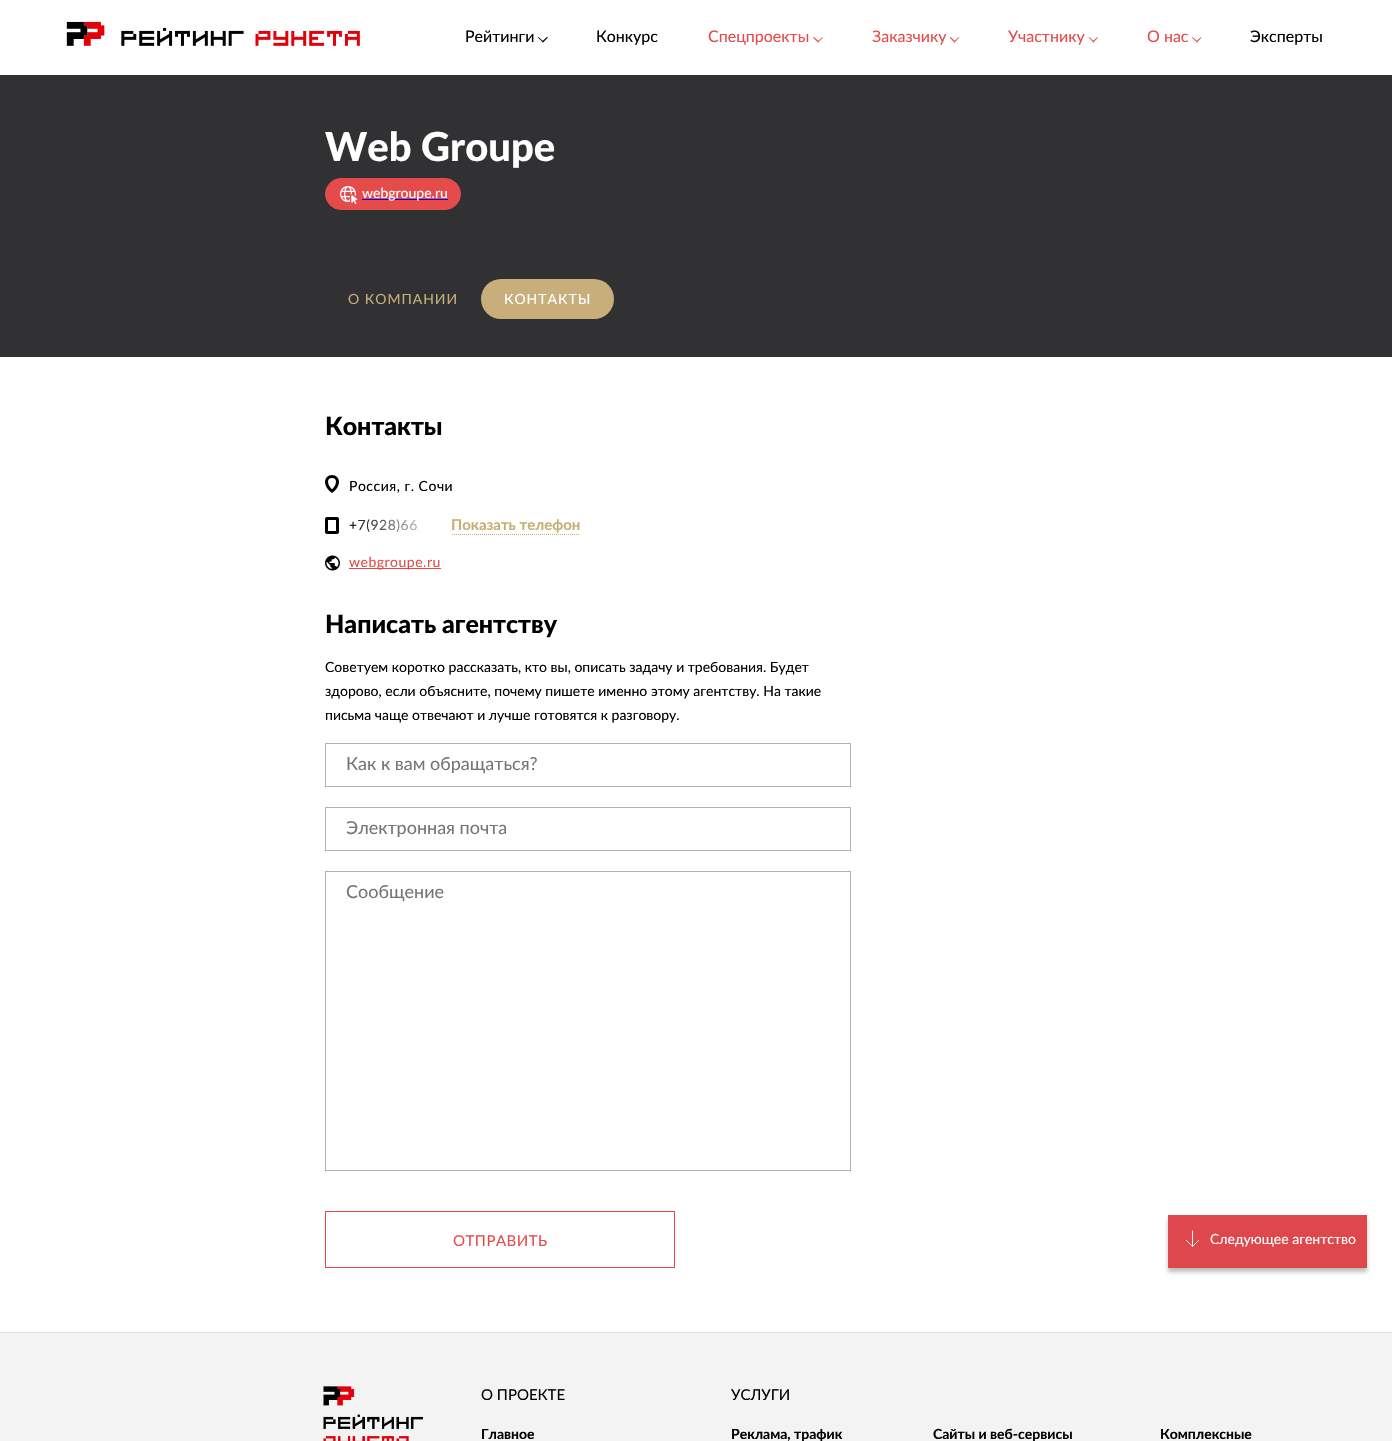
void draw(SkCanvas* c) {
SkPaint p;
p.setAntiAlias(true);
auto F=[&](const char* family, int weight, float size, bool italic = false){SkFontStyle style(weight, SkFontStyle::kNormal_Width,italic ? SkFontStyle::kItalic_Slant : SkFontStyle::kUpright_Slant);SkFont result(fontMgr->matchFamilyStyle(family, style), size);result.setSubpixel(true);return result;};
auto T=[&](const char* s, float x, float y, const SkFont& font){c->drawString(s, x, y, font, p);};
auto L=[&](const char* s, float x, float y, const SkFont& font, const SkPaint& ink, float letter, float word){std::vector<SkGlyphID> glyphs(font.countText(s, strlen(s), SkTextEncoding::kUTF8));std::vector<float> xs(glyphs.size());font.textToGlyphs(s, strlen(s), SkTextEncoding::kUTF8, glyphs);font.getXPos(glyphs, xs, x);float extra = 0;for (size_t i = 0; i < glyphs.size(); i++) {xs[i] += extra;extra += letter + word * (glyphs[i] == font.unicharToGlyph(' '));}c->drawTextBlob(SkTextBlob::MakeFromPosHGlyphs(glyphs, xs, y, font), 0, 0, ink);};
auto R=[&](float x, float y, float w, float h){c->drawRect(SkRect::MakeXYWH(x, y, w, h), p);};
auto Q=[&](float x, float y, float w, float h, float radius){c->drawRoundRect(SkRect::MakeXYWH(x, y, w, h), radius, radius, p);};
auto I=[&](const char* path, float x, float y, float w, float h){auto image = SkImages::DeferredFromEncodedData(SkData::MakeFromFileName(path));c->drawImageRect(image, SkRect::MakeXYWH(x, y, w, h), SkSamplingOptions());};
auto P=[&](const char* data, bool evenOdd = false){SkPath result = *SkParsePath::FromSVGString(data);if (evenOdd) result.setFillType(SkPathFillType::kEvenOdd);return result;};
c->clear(0xffffffff);
I("1.png",66,21,294,25);
auto f1 = F("Lato",400,16);
p.setColor(0xff000000);
T("Рейтинги",465,42,f1);
c->drawPath(P("M547 37l1 .5l-5 5l-1-1z"),p);
c->drawPath(P("M538.5 37l5 4.5l-.5 1l-5-5z"),p);
T("Конкурс",596,42,f1);
p.setColor(0xffe54b4b);
T("Спецпроекты",708,42,f1);
c->drawPath(P("M822.5 37l.5 .5l-5 5l-.5-1z"),p);
c->drawPath(P("M814 37l5 4.5l-1 1l-5-5z"),p);
T("Заказчику",872,42,f1);
c->drawPath(P("M959 37l.5 .5l-5 5l-.5-1z"),p);
c->drawPath(P("M950.5 37l5 4.5l-1 1l-5-5z"),p);
T("Участнику",1008,42,f1);
c->drawPath(P("M1097.5 37l.5 .5l-4.5 5l-1-1z"),p);
c->drawPath(P("M1089 37l5 4.5l-.5 1l-5-5z"),p);
T("О нас",1147,42,f1);
c->drawPath(P("M1201 37l.5 .5l-4.5 5l-1-1z"),p);
c->drawPath(P("M1192.5 37l5 4.5l-.5 1l-5-5z"),p);
p.setColor(0xff000000);
T("Эксперты",1250,42,f1);
p.setColor(0xff313133);
R(0,75,1392,282);
auto f2 = F("Lato",900,40);
p.setColor(0xffffffff);
T("Web Groupe",325,161,f2);
p.setColor(0xffe54b4b);
c->drawRoundRect(SkRect::MakeXYWH(325.5,178.5,135,31),15.5,15.5,p);
p.setStroke(true);
p.setStrokeWidth(1);
c->drawRoundRect(SkRect::MakeXYWH(325.5,178.5,135,31),15.5,15.5,p);
I("2.png",340,186,18,18);
p.setStroke(false);
p.setColor(0xff0000ee);
R(362,199,86,1);
auto f3 = F("Lato",400,14);
p.setColor(0xffffffff);
T("webgroupe.ru",362,198,f3);
p.setColor(0xffc8ae7a);
L("О КОМПАНИИ",348,304,f3,p,1,0);
Q(481,279,133,40,20);
p.setColor(0xffffffff);
L("КОНТАКТЫ",504,304,f3,p,1,0);
auto f4 = F("Lato",900,25);
p.setColor(0xff000000);
T("Контакты",325,435,f4);
c->save();
c->clipPath(P("M332 475c4 0 7 3 7 7c0 6.5-7 11-7 11c0 0-7-4.5-7-11c0-4 3-7 7-7z"),true);
p.setStroke(true);
p.setStrokeWidth(6);
c->drawPath(P("M332 475c4 0 7 3 7 7c0 6.5-7 11-7 11c0 0-7-4.5-7-11c0-4 3-7 7-7z"),p);
c->restore();
p.setStroke(false);
L("Россия, г. Сочи",349,491,f3,p,.5,0);
I("3.png",325,517,14,17);
L("+7(928)66",349,530,f3,p,.5,0);
{
const SkColor colors[] = {0xffffffff,0x00ffffff};
const float stops[] = {0,1};
const SkPoint ends[] = {{445,526}, {345,526}};
p.setShader(SkGradientShader::MakeLinear(ends, colors, stops, 2, SkTileMode::kClamp));
p.setAlpha(255);
}
R(350,519,67,13);
auto f5 = F("Lato",700,15);
p.setShader(nullptr);
p.setColor(0xffc8af72);
T("Показать телефон",451,530,f5);
p.setStroke(true);
p.setStrokeWidth(1);
p.setPathEffect(SkDashPathEffect::Make({{1,1}}, 0));
c->drawPath(P("M452 534.5h127"),p);
p.setPathEffect(nullptr);
I("4.png",325,555,15,16);
p.setStroke(false);
p.setColor(0xffe54a4b);
R(349,568,92,1);
p.setColor(0xffe54b4b);
L("webgroupe.ru",349,567,f3,p,.5,0);
p.setColor(0xff000000);
T("Написать агентству",325,633,f4);
T("Советуем коротко рассказать, кто вы, описать задачу и требования. Будет",325,672,f3);
T("здорово, если объясните, почему пишете именно этому агентству. На такие",325,696,f3);
T("письма чаще отвечают и лучше готовятся к разговору.",325,720,f3);
p.setStroke(true);
p.setColor(0xffb3b3b3);
c->drawRect(SkRect::MakeXYWH(325.5,743.5,525,43),p);
auto f6 = F("Lato",400,18);
p.setStroke(false);
p.setColor(0xff757575);
T("Как к вам обращаться?",346,770,f6);
p.setStroke(true);
p.setColor(0xffb3b3b3);
c->drawRect(SkRect::MakeXYWH(325.5,807.5,525,43),p);
p.setStroke(false);
p.setColor(0xff757575);
T("Электронная почта",346,834,f6);
p.setStroke(true);
p.setColor(0xffbaabaa);
c->drawRect(SkRect::MakeXYWH(325.5,871.5,525,299),p);
p.setStroke(false);
p.setColor(0xff757575);
T("Сообщение",346,898,f6);
p.setStroke(true);
p.setColor(0xffe54b4b);
c->drawRect(SkRect::MakeXYWH(325.5,1211.5,349,56),p);
auto f7 = F("Lato",400,15);
p.setStroke(false);
L("ОТПРАВИТЬ",453,1246,f7,p,.5,0);
p.setColor(0x40000000);
p.setMaskFilter(SkMaskFilter::MakeBlur(kNormal_SkBlurStyle, 2));
c->drawRect(SkRect::MakeXYWH(1168,1219,199,53),p);
p.setMaskFilter(nullptr);
p.setColor(0xffde474b);
R(1168,1215,199,53);
p.setStroke(true);
p.setStrokeWidth(.9);
p.setColor(0xffffffff);
c->drawPath(P("M1192.5 1230.5v16m0 0l-6.5-6.5m6.5 6.5l6.5-6.5"),p);
p.setStroke(false);
T("Следующее агентство",1210,1244,f3);
p.setColor(0xfff3f3f3);
R(0,1333,1392,108);
p.setColor(0xffdbdbdb);
R(0,1332,1392,1);
I("5.png",323,1386,100,55);
p.setColor(0xff000000);
T("О ПРОЕКТЕ",481,1400,f7);
auto f8 = F("Lato",700,14);
T("Главное",481,1439,f8);
T("УСЛУГИ",731,1400,f7);
T("Реклама, трафик",731,1439,f8);
T("Сайты и веб-сервисы",933,1439,f8);
T("Комплексные",1160,1439,f8);
}
